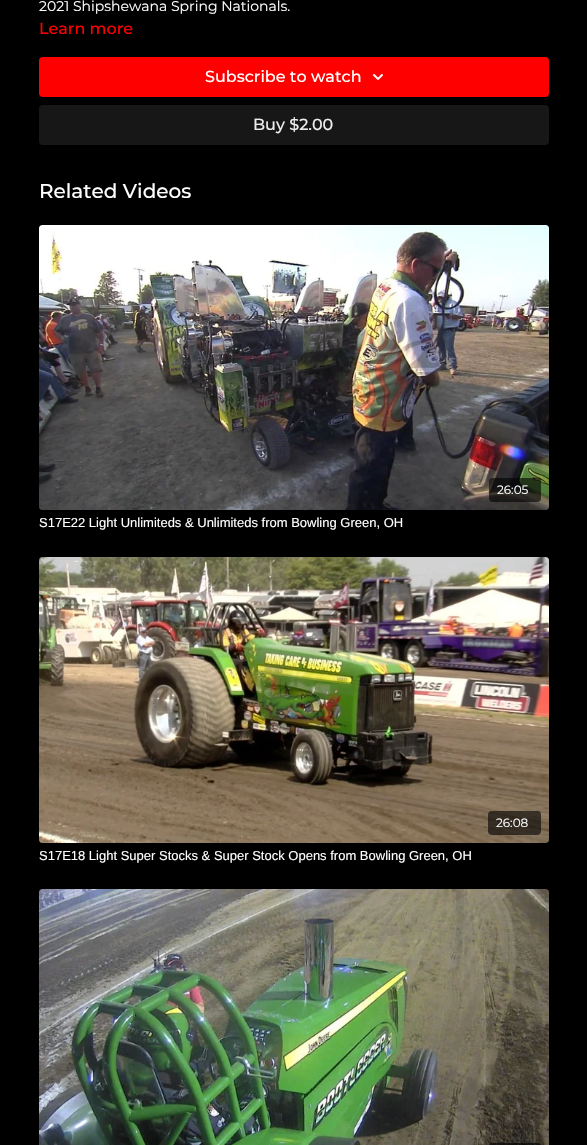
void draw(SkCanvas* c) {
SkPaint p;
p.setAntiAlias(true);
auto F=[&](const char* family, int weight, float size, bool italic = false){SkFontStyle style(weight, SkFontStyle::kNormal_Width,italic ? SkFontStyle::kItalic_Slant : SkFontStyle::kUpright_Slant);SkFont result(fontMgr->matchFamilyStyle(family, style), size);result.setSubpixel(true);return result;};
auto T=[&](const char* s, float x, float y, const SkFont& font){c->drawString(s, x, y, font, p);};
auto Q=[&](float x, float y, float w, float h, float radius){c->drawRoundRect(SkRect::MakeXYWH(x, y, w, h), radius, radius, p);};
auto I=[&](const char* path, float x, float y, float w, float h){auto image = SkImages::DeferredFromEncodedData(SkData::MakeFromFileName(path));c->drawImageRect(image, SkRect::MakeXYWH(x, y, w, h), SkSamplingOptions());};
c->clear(0xff000000);
auto f1 = F("Montserrat",400,14);
p.setColor(0xffffffff);
T("2021 Shipshewana Spring Nationals.",39,11,f1);
auto f2 = F("Montserrat",500,16);
p.setColor(0xffff0000);
T("Learn more",39,34,f2);
Q(39,57,510,40,4);
p.setColor(0xffffffff);
T("Subscribe to watch",205,82,f2);
I("1.png",373,74,10,6);
p.setColor(0xff171717);
Q(39,105,510,40,4);
p.setColor(0xffeeeeee);
T("Buy $2.00",253,130,f2);
auto f3 = F("Montserrat",500,20);
p.setColor(0xffffffff);
T("Related Videos",39,198,f3);
I("2.png",39,225,510,285);
p.setColor(0x99000000);
Q(489,478,52,24,4);
auto f4 = F("Montserrat",400,12);
p.setColor(0xffffffff);
T("26:05",497,494,f4);
auto f5 = F("Liberation Sans",400,13);
T("S17E22 Light Unlimiteds & Unlimiteds from Bowling Green, OH",39,527,f5);
I("3.png",39,557,510,286);
p.setColor(0x99000000);
Q(488,811,53,24,4);
p.setColor(0xffffffff);
T("26:08",496,827,f4);
T("S17E18 Light Super Stocks & Super Stock Opens from Bowling Green, OH",39,860,f5);
I("4.png",39,889,510,256);
p.setColor(0x99000000);
Q(489,1143,52,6,4);
}
